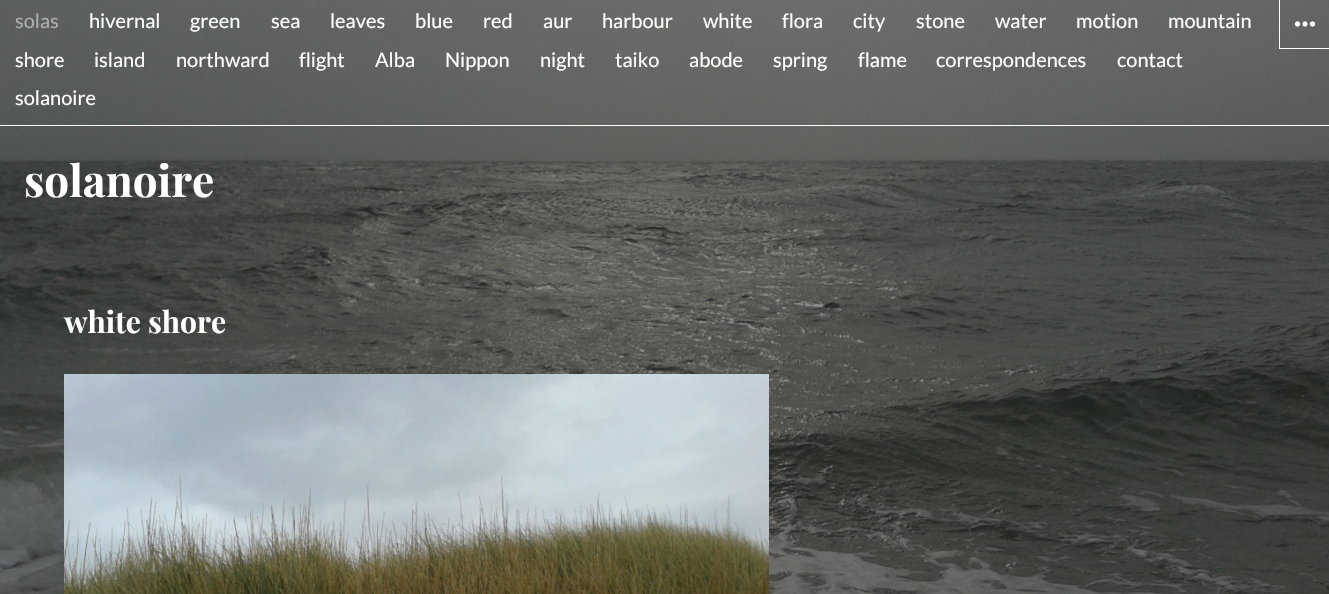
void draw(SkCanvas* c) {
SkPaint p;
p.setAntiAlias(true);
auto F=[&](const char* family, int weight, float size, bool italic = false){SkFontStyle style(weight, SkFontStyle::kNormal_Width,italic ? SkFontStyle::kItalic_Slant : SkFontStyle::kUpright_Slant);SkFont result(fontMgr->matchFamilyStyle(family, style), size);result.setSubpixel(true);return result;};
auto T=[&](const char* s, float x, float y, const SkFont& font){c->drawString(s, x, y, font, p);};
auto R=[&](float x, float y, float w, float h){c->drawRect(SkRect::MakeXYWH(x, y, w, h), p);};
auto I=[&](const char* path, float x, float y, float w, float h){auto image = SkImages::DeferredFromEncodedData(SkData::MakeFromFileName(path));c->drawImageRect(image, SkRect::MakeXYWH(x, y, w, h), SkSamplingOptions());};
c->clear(0xffffffff);
I("1.png",0,0,1329,594);
auto f1 = F("Lato",400,20);
p.setColor(0xffadafaf);
T("solas",15,28,f1);
p.setColor(0xffffffff);
T("hivernal",89,28,f1);
T("green",190,28,f1);
T("sea",271,28,f1);
T("leaves",330,28,f1);
T("blue",415,28,f1);
T("red",483,28,f1);
T("aur",543,28,f1);
T("harbour",602,28,f1);
T("white",703,28,f1);
T("flora",782,28,f1);
T("city",853,28,f1);
T("stone",916,28,f1);
T("water",995,28,f1);
T("motion",1076,28,f1);
T("mountain",1168,28,f1);
T("shore",15,67,f1);
T("island",94,67,f1);
T("northward",176,67,f1);
T("flight",299,67,f1);
T("Alba",375,67,f1);
T("Nippon",445,67,f1);
T("night",540,67,f1);
T("taiko",615,67,f1);
T("abode",689,67,f1);
T("spring",773,67,f1);
T("flame",858,67,f1);
T("correspondences",936,67,f1);
T("contact",1117,67,f1);
T("solanoire",15,105,f1);
R(1279,48,50,1);
R(1279,0,1,49);
I("2.png",1294,21,22,6);
R(0,125,1329,1);
auto f2 = F("Playfair Display",700,44);
T("solanoire",24,197,f2);
auto f3 = F("Playfair Display",700,30);
T("white shore",64,333,f3);
I("3.png",64,374,705,220);
}
